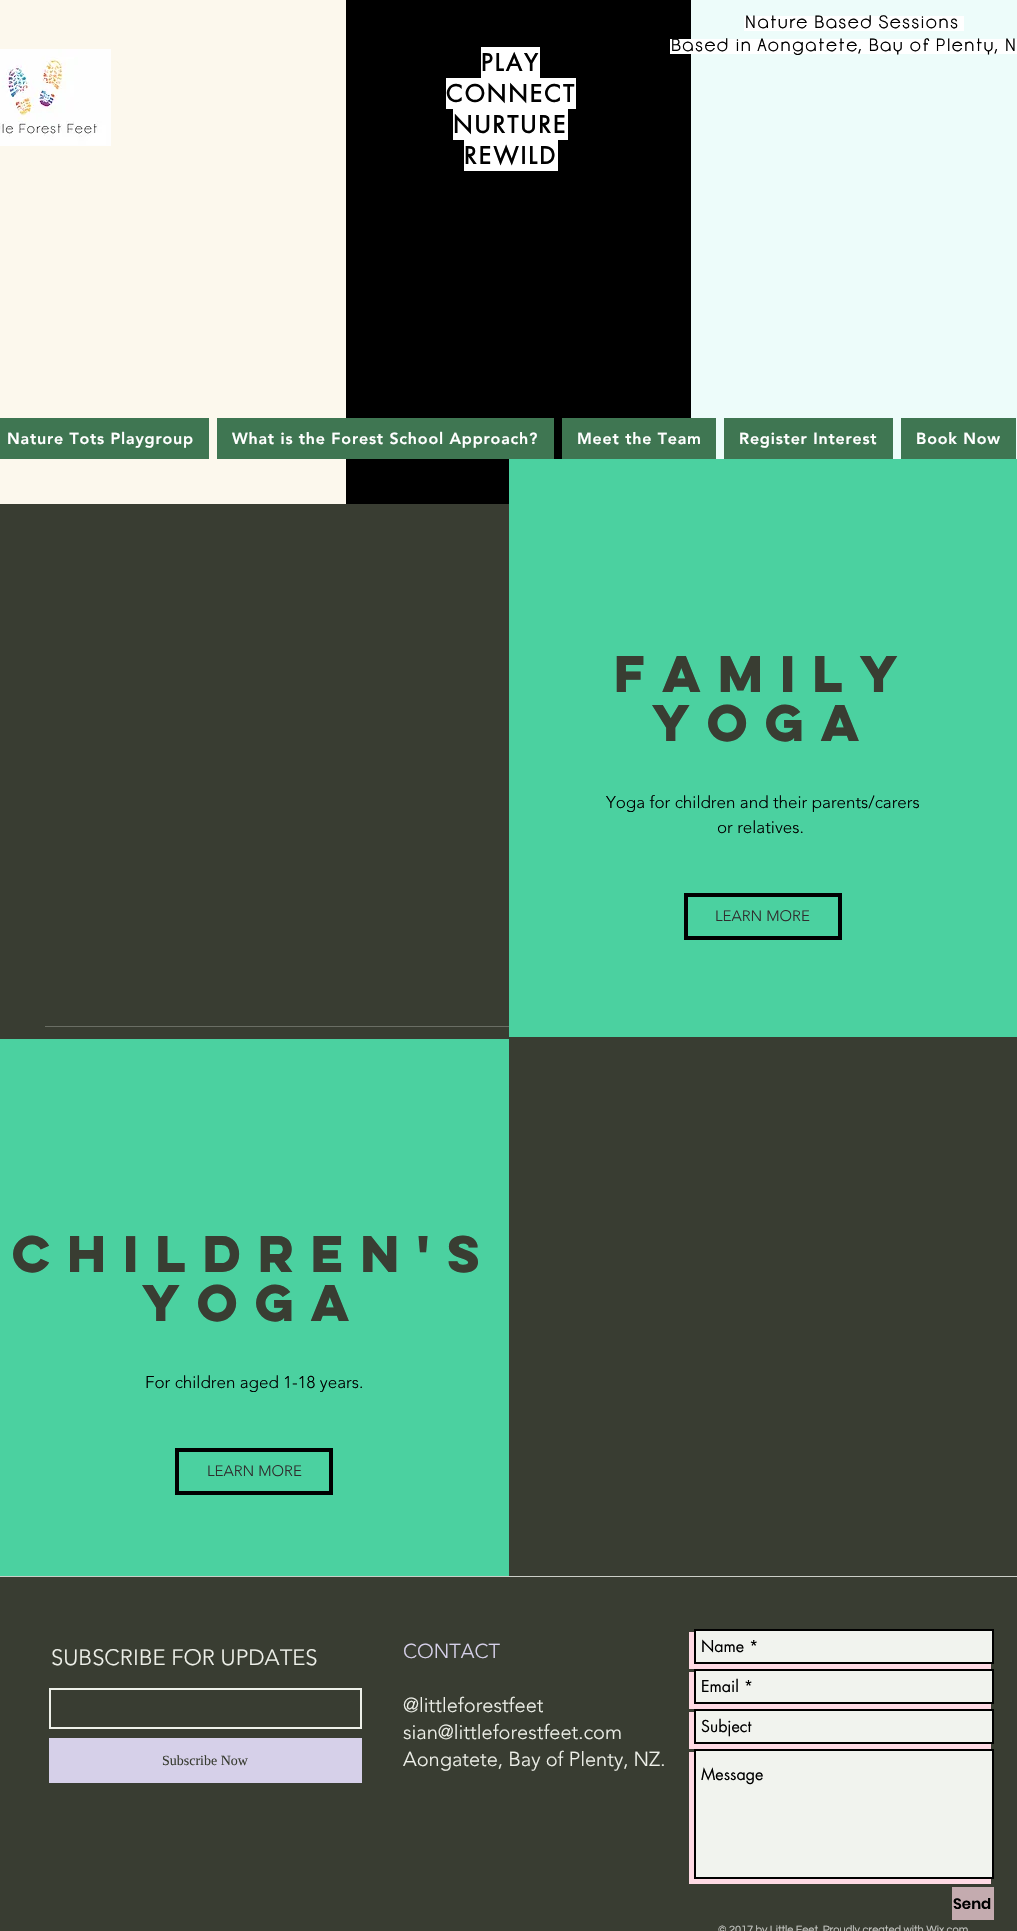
void draw(SkCanvas* c) {
SkPaint p;
p.setAntiAlias(true);
auto F=[&](const char* family, int weight, float size, bool italic = false){SkFontStyle style(weight, SkFontStyle::kNormal_Width,italic ? SkFontStyle::kItalic_Slant : SkFontStyle::kUpright_Slant);SkFont result(fontMgr->matchFamilyStyle(family, style), size);result.setSubpixel(true);return result;};
auto T=[&](const char* s, float x, float y, const SkFont& font){c->drawString(s, x, y, font, p);};
auto L=[&](const char* s, float x, float y, const SkFont& font, const SkPaint& ink, float letter, float word){std::vector<SkGlyphID> glyphs(font.countText(s, strlen(s), SkTextEncoding::kUTF8));std::vector<float> xs(glyphs.size());font.textToGlyphs(s, strlen(s), SkTextEncoding::kUTF8, glyphs);font.getXPos(glyphs, xs, x);float extra = 0;for (size_t i = 0; i < glyphs.size(); i++) {xs[i] += extra;extra += letter + word * (glyphs[i] == font.unicharToGlyph(' '));}c->drawTextBlob(SkTextBlob::MakeFromPosHGlyphs(glyphs, xs, y, font), 0, 0, ink);};
auto R=[&](float x, float y, float w, float h){c->drawRect(SkRect::MakeXYWH(x, y, w, h), p);};
auto I=[&](const char* path, float x, float y, float w, float h){auto image = SkImages::DeferredFromEncodedData(SkData::MakeFromFileName(path));c->drawImageRect(image, SkRect::MakeXYWH(x, y, w, h), SkSamplingOptions());};
auto P=[&](const char* data, bool evenOdd = false){SkPath result = *SkParsePath::FromSVGString(data);if (evenOdd) result.setFillType(SkPathFillType::kEvenOdd);return result;};
c->clear(0xff393d32);
p.setColor(0xfffcf8ed);
R(0,0,346,504);
I("1.png",0,49,111,97);
p.setColor(0xffedfcfa);
R(691,0,326,459);
p.setColor(0xffffffff);
R(744,16,220,15);
auto f1 = F("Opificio",700,17);
p.setColor(0xff000000);
L("Nature Based Sessions",744,28,f1,p,.15,0);
R(346,0,345,504);
p.setColor(0xffffffff);
R(670,39,347,15);
p.setColor(0xff000000);
L("Based in Aongatete, Bay of Plenty, N",670,51,f1,p,.15,0);
p.setColor(0xffffffff);
R(481,47,59,31);
auto f2 = F("futura",700,23);
p.setColor(0xff000000);
L("PLAY",481,71,f2,p,2.25,0);
p.setColor(0xffffffff);
R(446,78,130,31);
p.setColor(0xff000000);
L("CONNECT",446,102,f2,p,2.25,0);
p.setColor(0xffffffff);
R(453,109,115,31);
p.setColor(0xff000000);
L("NURTURE",453,133,f2,p,2.25,0);
p.setColor(0xffffffff);
R(464,140,94,31);
p.setColor(0xff000000);
L("REWILD",464,164,f2,p,2.25,0);
p.setColor(0xff3f7652);
R(0,418,209,41);
auto f3 = F("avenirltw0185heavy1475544",900,16);
p.setColor(0xffffffff);
L("Nature Tots Playgroup",7,444,f3,p,.8,0);
p.setColor(0xff3f7652);
R(217,418,337,41);
p.setColor(0xffffffff);
L("What is the Forest School Approach?",232,444,f3,p,.8,0);
p.setColor(0xff3f7652);
R(562,418,154,41);
p.setColor(0xffffffff);
L("Meet the Team",577,444,f3,p,.8,0);
p.setColor(0xff3f7652);
R(724,418,169,41);
p.setColor(0xffffffff);
L("Register Interest",739,444,f3,p,.8,0);
p.setColor(0xff3f7652);
R(901,418,115,41);
p.setColor(0xffffffff);
L("Book Now",916,444,f3,p,.8,0);
p.setColor(0xff4bd1a0);
R(509,459,508,578);
auto f4 = F("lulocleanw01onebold",700,46);
p.setColor(0xff393d32);
L("family",614,692,f4,p,7,0);
L("yoga",652,741,f4,p,7,0);
auto f5 = F("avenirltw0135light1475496",300,17);
p.setColor(0xff000000);
T("Yoga for children and their parents/carers",606,808,f5);
T("or relatives.",717,833,f5);
p.setStroke(true);
p.setStrokeWidth(4);
c->drawRect(SkRect::MakeXYWH(686,895,154,43),p);
auto f6 = F("avenirltw0135light1475496",300,15);
p.setStroke(false);
p.setColor(0xff2f2e2e);
T("LEARN MORE",715,921,f6);
p.setColor(0xff6a6e64);
R(45,1026,464,1);
p.setColor(0xff4bd1a0);
R(0,1039,509,537);
p.setColor(0xff393d32);
L("children's",12,1272,f4,p,7,0);
L("yoga",142,1321,f4,p,7,0);
p.setColor(0xff000000);
T("For children aged 1-18 years.",145,1388,f5);
p.setStroke(true);
c->drawRect(SkRect::MakeXYWH(177,1450,154,43),p);
p.setStroke(false);
p.setColor(0xff2f2e2e);
T("LEARN MORE",207,1476,f6);
p.setColor(0xffcccfc8);
R(0,1576,1017,1);
auto f7 = F("avenirltw0135light1475496",300,22);
p.setColor(0xffeef0e9);
T("SUBSCRIBE FOR UPDATES",51,1665,f7);
p.setStroke(true);
p.setStrokeWidth(2);
c->drawRect(SkRect::MakeXYWH(50,1689,311,39),p);
p.setStroke(false);
p.setColor(0xffd6d0e9);
R(49,1738,313,45);
auto f8 = F("Liberation Serif",400,14);
p.setColor(0xff393d32);
T("Subscribe Now",162,1765,f8);
auto f9 = F("avenirltw0135light1475496",300,20);
p.setColor(0xffd6d0e9);
T("CONTACT",403,1658,f9);
p.setColor(0xffeef0e9);
T("@littleforestfeet",403,1712,f9);
T("sian@littleforestfeet.com",403,1739,f9);
T("Aongatete, Bay of Plenty, NZ.",403,1766,f9);
p.setColor(0xffffdae4);
c->drawPath(P("M689 1632v37h302v-5h-297v-32z"),p);
p.setColor(0xfff1f3ee);
c->drawRect(SkRect::MakeXYWH(695,1630,298,33),p);
p.setStroke(true);
p.setColor(0xff000000);
c->drawRect(SkRect::MakeXYWH(695,1630,298,33),p);
auto f10 = F("futura",400,16);
p.setStroke(false);
T("Name *",701,1652,f10);
p.setColor(0xffffdae4);
c->drawPath(P("M689 1672v37h302v-5h-297v-32z"),p);
p.setColor(0xfff1f3ee);
c->drawRect(SkRect::MakeXYWH(695,1670,298,33),p);
p.setStroke(true);
p.setColor(0xff000000);
c->drawRect(SkRect::MakeXYWH(695,1670,298,33),p);
p.setStroke(false);
T("Email *",701,1692,f10);
p.setColor(0xffffdae4);
c->drawPath(P("M689 1712v37h302v-5h-297v-32z"),p);
p.setColor(0xfff1f3ee);
c->drawRect(SkRect::MakeXYWH(695,1710,298,33),p);
p.setStroke(true);
p.setColor(0xff000000);
c->drawRect(SkRect::MakeXYWH(695,1710,298,33),p);
p.setStroke(false);
T("Subject",701,1732,f10);
p.setColor(0xffffdae4);
c->drawPath(P("M689 1752v132h302v-5h-297v-127z"),p);
p.setColor(0xfff1f3ee);
c->drawRect(SkRect::MakeXYWH(695,1750,298,128),p);
p.setStroke(true);
p.setColor(0xff000000);
c->drawRect(SkRect::MakeXYWH(695,1750,298,128),p);
p.setStroke(false);
T("Message",701,1780,f10);
p.setColor(0xffc4abaf);
R(952,1887,42,33);
auto f11 = F("Poppins",600,15);
p.setColor(0xff000000);
T("Send",953,1909,f11);
auto f12 = F("Questrial",400,11);
p.setColor(0xffc8c9c5);
T("© 2017 by Little Feet. Proudly created with Wix.com",718,1933,f12);
}
